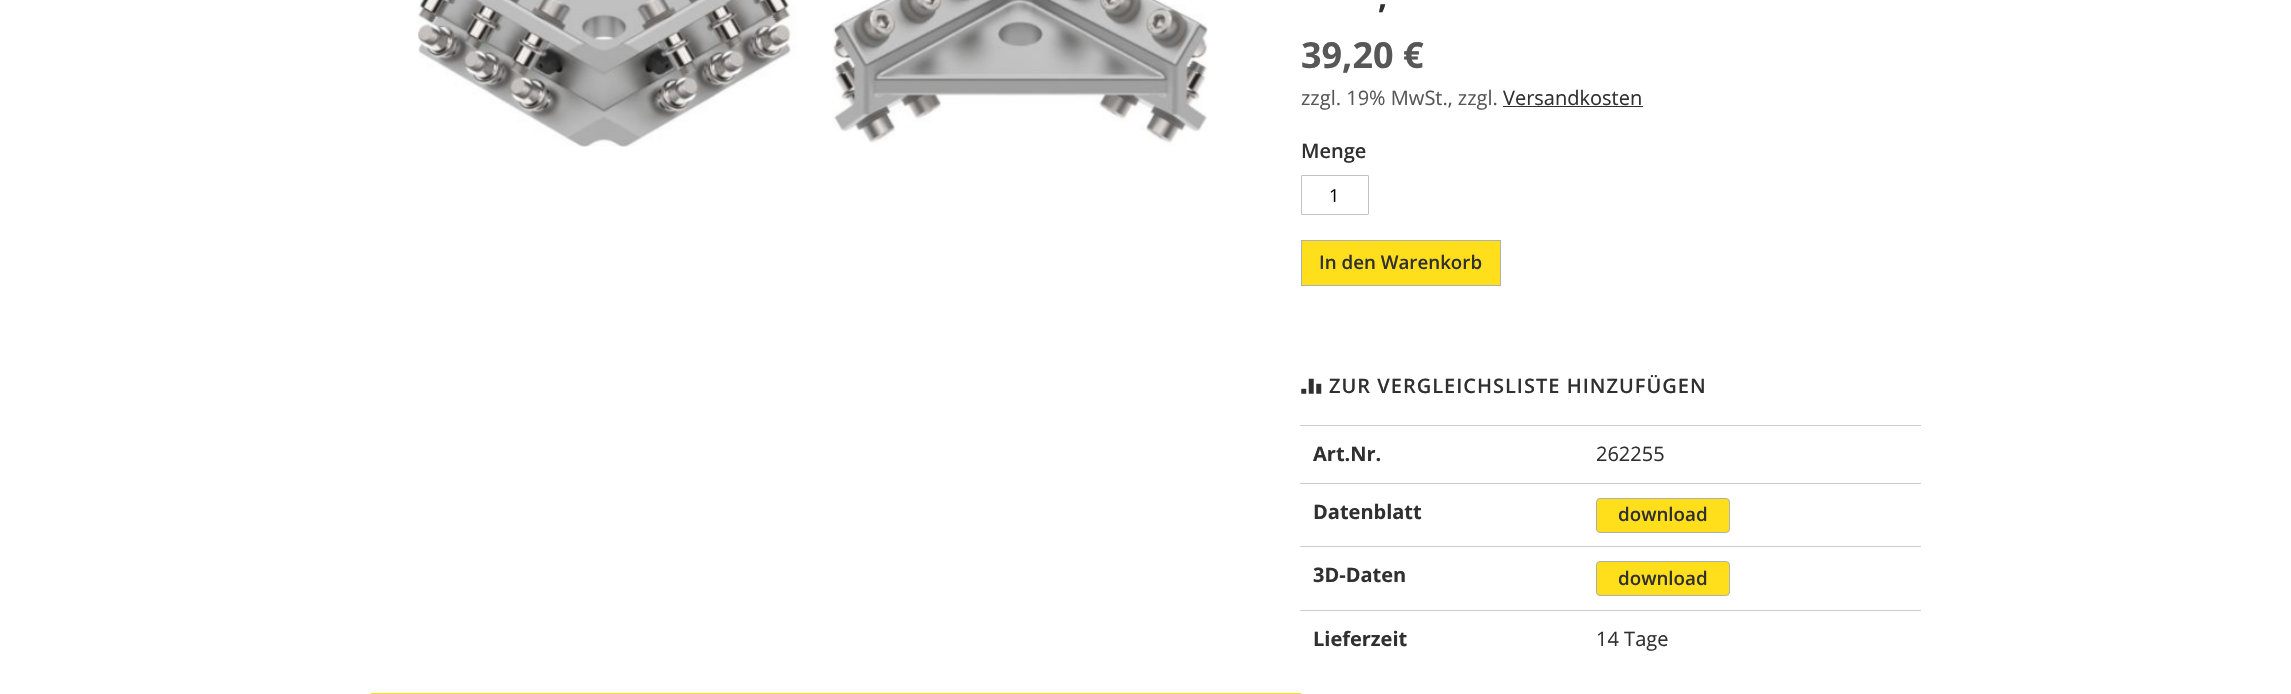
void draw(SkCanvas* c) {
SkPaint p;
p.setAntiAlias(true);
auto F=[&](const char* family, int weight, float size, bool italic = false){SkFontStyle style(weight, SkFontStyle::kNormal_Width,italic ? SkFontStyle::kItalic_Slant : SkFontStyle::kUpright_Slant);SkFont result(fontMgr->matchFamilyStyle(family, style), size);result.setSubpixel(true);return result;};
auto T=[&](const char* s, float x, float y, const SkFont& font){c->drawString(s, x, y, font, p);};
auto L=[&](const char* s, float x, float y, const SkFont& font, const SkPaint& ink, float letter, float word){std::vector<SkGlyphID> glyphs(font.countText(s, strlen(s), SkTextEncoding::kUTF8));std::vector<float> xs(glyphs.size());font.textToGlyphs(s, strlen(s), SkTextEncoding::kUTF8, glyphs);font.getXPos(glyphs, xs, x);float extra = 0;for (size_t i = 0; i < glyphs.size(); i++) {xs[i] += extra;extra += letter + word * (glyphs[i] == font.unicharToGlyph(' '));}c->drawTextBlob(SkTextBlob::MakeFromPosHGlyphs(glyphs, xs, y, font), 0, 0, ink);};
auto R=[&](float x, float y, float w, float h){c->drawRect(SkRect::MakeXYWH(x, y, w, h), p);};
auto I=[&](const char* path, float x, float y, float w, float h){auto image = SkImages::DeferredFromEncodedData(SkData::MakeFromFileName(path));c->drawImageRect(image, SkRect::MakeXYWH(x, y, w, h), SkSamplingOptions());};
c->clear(0xffffffff);
I("1.png",418,0,790,147);
auto f1 = F("Open Sans",700,32);
p.setColor(0xff303030);
T(",",1378,8,f1);
auto f2 = F("Open Sans",700,36);
p.setColor(0xff575757);
T("39,20 €",1301,68,f2);
auto f3 = F("Open Sans",400,20);
T("zzgl. 19% MwSt., zzgl.",1301,105,f3);
p.setColor(0xff303030);
T("Versandkosten",1503,105,f3);
R(1503,106,140,1);
auto f4 = F("Open Sans",600,20);
T("Menge",1301,158,f4);
p.setStroke(true);
p.setStrokeWidth(1);
p.setColor(0xffc2c2c2);
c->drawRoundRect(SkRect::MakeXYWH(1301.5,175.5,67,39),.5,.5,p);
auto f5 = F("Open Sans",400,18);
p.setStroke(false);
p.setColor(0xff000000);
T("1",1329,202,f5);
p.setColor(0xffffde1b);
c->drawRect(SkRect::MakeXYWH(1301.5,240.5,199,45),p);
p.setStroke(true);
p.setColor(0xffafafaf);
c->drawRect(SkRect::MakeXYWH(1301.5,240.5,199,45),p);
auto f6 = F("Open Sans",600,18.75);
p.setStroke(false);
p.setColor(0xff303030);
T("In den Warenkorb",1319,269,f6);
I("2.png",1301,378,21,16);
L("ZUR VERGLEICHSLISTE HINZUFÜGEN",1329,393,f4,p,1,0);
auto f7 = F("Open Sans",700,20);
T("Art.Nr.",1313,461,f7);
p.setColor(0xffcccccc);
R(1300,425,621,1);
p.setColor(0xff303030);
T("262255",1596,461,f3);
T("Datenblatt",1313,519,f7);
p.setColor(0xffcccccc);
R(1300,483,621,1);
p.setColor(0xffffde1b);
c->drawRoundRect(SkRect::MakeXYWH(1596.5,498.5,133,34),3.5,3.5,p);
p.setStroke(true);
p.setColor(0xffafafaf);
c->drawRoundRect(SkRect::MakeXYWH(1596.5,498.5,133,34),3.5,3.5,p);
p.setStroke(false);
p.setColor(0xff303030);
T("download",1618,521,f6);
T("3D-Daten",1313,582,f7);
p.setColor(0xffcccccc);
R(1300,546,621,1);
p.setColor(0xffffde1b);
c->drawRoundRect(SkRect::MakeXYWH(1596.5,561.5,133,34),3.5,3.5,p);
p.setStroke(true);
p.setColor(0xffafafaf);
c->drawRoundRect(SkRect::MakeXYWH(1596.5,561.5,133,34),3.5,3.5,p);
p.setStroke(false);
p.setColor(0xff303030);
T("download",1618,585,f6);
T("Lieferzeit",1313,646,f7);
p.setColor(0xffcccccc);
R(1300,610,621,1);
p.setColor(0xff303030);
T("14 Tage",1596,646,f3);
p.setColor(0xffffde1b);
R(371,693,930,1);
}
